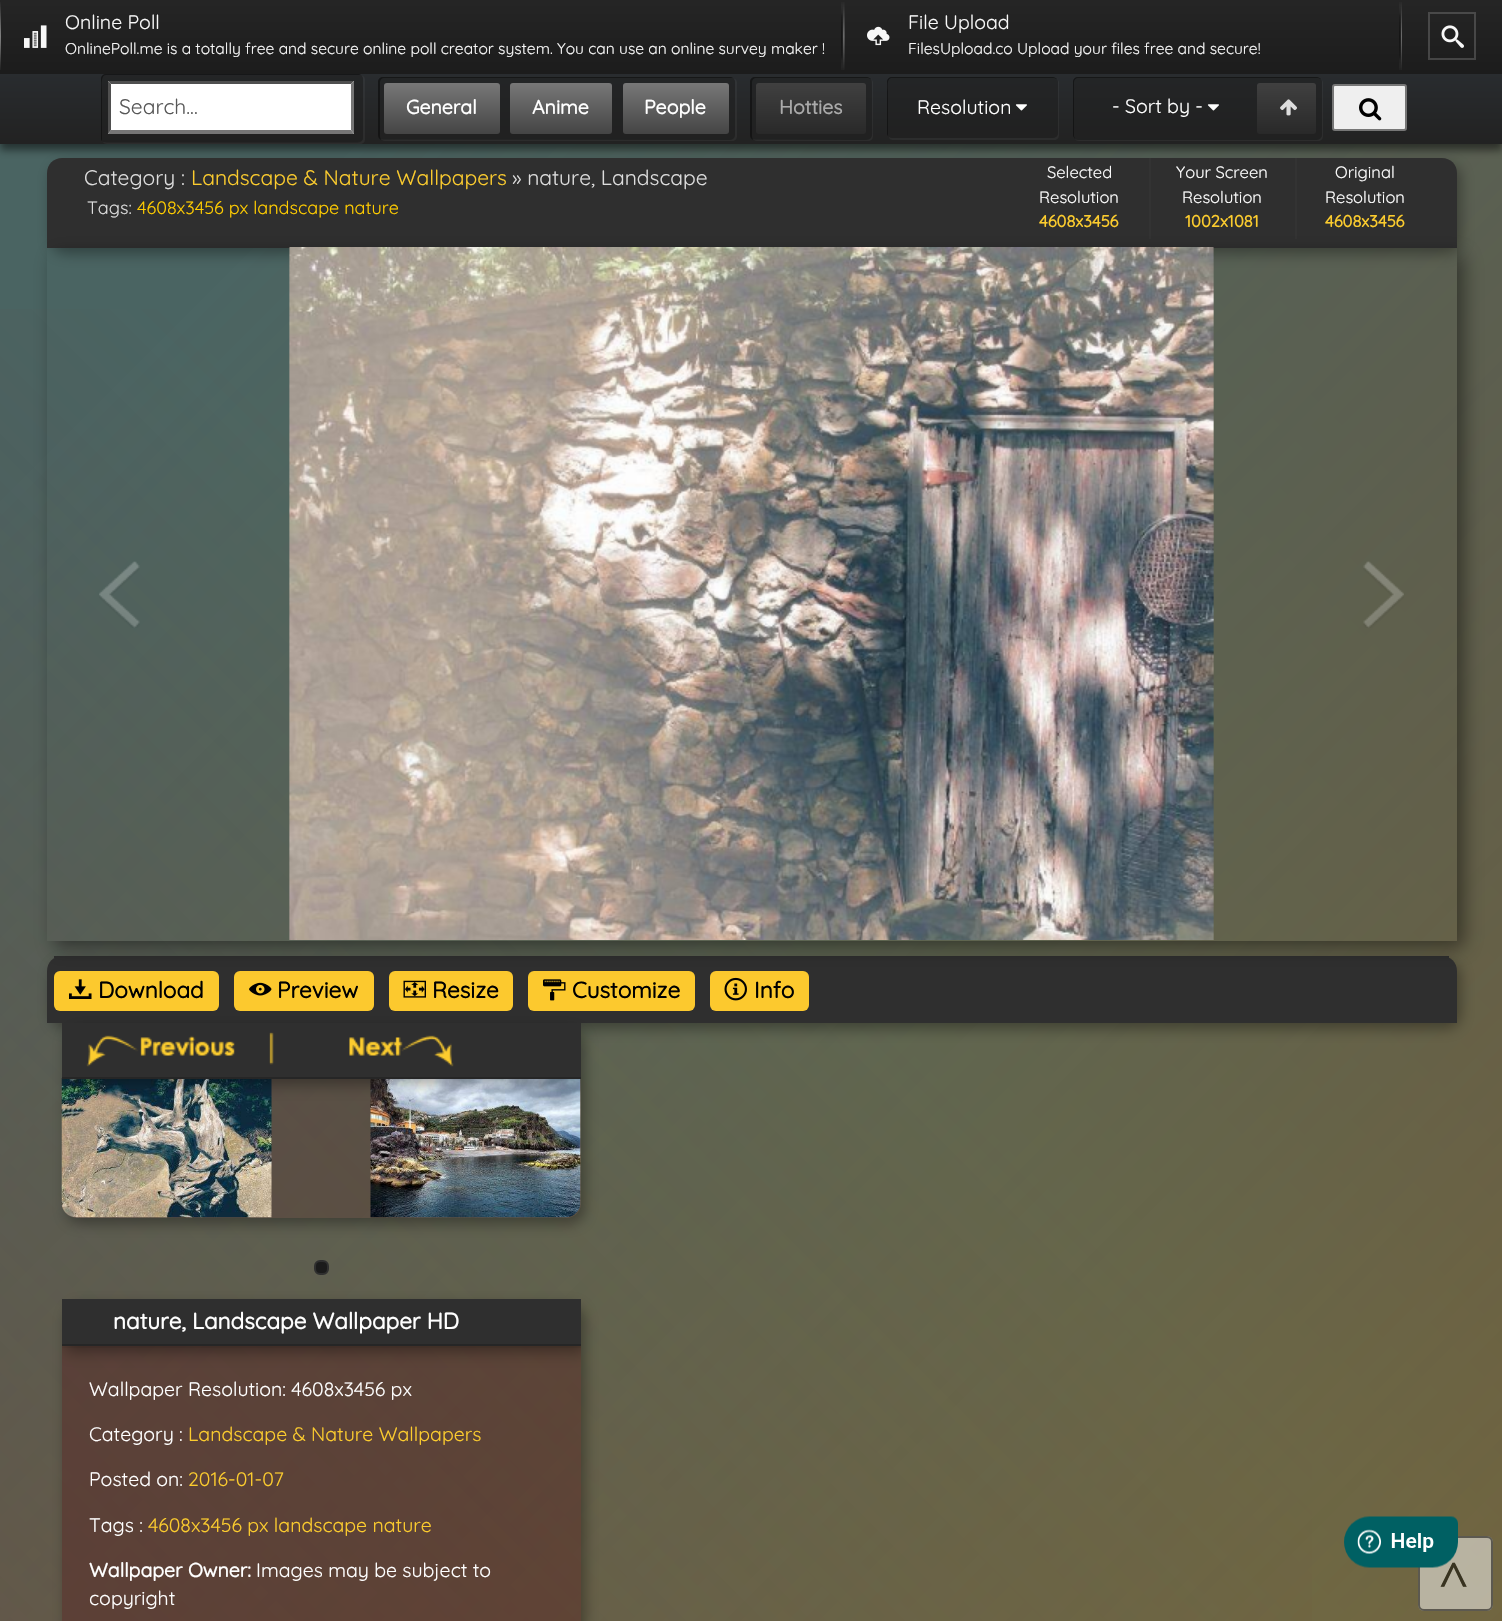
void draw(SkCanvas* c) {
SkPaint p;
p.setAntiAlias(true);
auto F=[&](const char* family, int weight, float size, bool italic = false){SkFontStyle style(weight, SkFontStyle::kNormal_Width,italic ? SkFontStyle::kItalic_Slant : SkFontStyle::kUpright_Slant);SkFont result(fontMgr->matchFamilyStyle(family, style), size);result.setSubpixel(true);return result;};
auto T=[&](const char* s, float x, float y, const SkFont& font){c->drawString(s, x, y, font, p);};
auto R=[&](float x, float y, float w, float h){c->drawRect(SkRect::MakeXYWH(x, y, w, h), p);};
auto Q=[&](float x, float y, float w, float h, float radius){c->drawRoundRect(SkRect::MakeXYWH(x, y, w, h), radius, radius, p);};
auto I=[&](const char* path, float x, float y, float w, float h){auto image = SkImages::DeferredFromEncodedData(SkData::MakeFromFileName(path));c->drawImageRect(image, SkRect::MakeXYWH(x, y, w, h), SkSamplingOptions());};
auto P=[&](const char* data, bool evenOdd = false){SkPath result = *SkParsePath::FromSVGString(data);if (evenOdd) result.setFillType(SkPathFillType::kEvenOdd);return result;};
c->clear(0xffffffff);
{
const SkColor colors[] = {0xff7f5429,0xff949439};
const float stops[] = {.1,.8};
const SkPoint ends[] = {{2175,595}, {-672,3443}};
p.setShader(SkGradientShader::MakeLinear(ends, colors, stops, 2, SkTileMode::kClamp));
p.setAlpha(255);
}
R(0,144,1502,1477);
{
const SkColor colors[] = {0xff4a6462,0x004a6462};
const float stops[] = {.1,.8};
const SkPoint ends[] = {{-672,596}, {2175,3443}};
p.setShader(SkGradientShader::MakeLinear(ends, colors, stops, 2, SkTileMode::kClamp));
p.setAlpha(255);
}
R(0,144,1502,1477);
{
const SkColor colors[] = {0xff693735,0x00693735};
const float stops[] = {0,.7};
const SkPoint ends[] = {{-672,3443}, {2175,596}};
p.setShader(SkGradientShader::MakeLinear(ends, colors, stops, 2, SkTileMode::kClamp));
p.setAlpha(255);
}
R(0,309,1312,1312);
p.setShader(nullptr);
p.setColor(0x80000000);
p.setMaskFilter(SkMaskFilter::MakeBlur(kNormal_SkBlurStyle, 4));
c->drawRect(SkRect::MakeXYWH(0,81,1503,69),p);
p.setMaskFilter(nullptr);
p.setStroke(true);
p.setStrokeWidth(2);
p.setColor(0xff222222);
c->drawRect(SkRect::MakeXYWH(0,73,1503,70),p);
p.setStroke(false);
{
const SkColor colors[] = {0xff2f2f2f,0xff1c1c1c};
const float stops[] = {0,1};
const SkPoint ends[] = {{752,-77}, {752,74}};
p.setShader(SkGradientShader::MakeLinear(ends, colors, stops, 2, SkTileMode::kClamp));
p.setAlpha(255);
}
R(0,0,1502,74);
I("1.png",0,2,1,68);
I("2.png",24,25,23,23);
auto f1 = F("Quicksand",300,19.5);
p.setShader(nullptr);
p.setColor(0xfff8f8f8);
T("Online Poll",65,29,f1);
auto f2 = F("Quicksand",300,15.6);
T("OnlinePoll.me is a totally free and secure online poll creator system. You can use an online survey maker !",65,54,f2);
I("3.png",841,2,4,68);
I("4.png",867,26,23,20);
T("File Upload",908,29,f1);
T("FilesUpload.co Upload your files free and secure!",908,54,f2);
I("5.png",1399,2,3,68);
p.setStroke(true);
p.setColor(0x66808080);
c->drawRect(SkRect::MakeXYWH(1429,13,46,46),p);
I("6.png",1441,25,23,23);
p.setStroke(false);
{
const SkColor colors[] = {0xff292c2f,0xff222222};
const float stops[] = {0,1};
const SkPoint ends[] = {{752,73}, {752,143}};
p.setShader(SkGradientShader::MakeLinear(ends, colors, stops, 2, SkTileMode::kClamp));
p.setAlpha(255);
}
R(0,74,1502,68);
p.setShader(nullptr);
p.setColor(0x1a7f7f7f);
c->drawPath(P("M103 142c1 1 2 2 4 2h253c3 0 5-2 5-5v-59c0-2-1-4-3-4l1 2v60c0 2-2 4-5 4h-253z"),p);
p.setColor(0x801e1e1e);
Q(101,74,262,69,5);
p.setColor(0x66000000);
c->drawPath(P("M106 75h255c-1-1-2-1-3-1h-252c-3 0-5 2-5 5v59c0 1 0 2 1 3v-51c0-1-2-15 4-15z"),p);
p.setColor(0xffffffff);
R(108,81,246,53);
p.setColor(0xff4f4f4f);
c->drawPath(P("M108 81h246l-3 3h-240z"),p);
p.setColor(0xff767676);
c->drawPath(P("M354 81v53l-3-4v-46z"),p);
c->drawPath(P("M354 134h-246l3-4h240z"),p);
p.setColor(0xff4f4f4f);
c->drawPath(P("M108 134v-53l3 3v46z"),p);
auto f3 = F("Quicksand",300,21);
p.setColor(0xff575757);
T("Search...",119,114,f3);
p.setColor(0x1a7f7f7f);
c->drawPath(P("M381 139c1 1 3 2 4 2h347c3 0 5-2 5-5v-53c0-2-1-4-3-4l1 2v54c0 2-2 5-5 5z"),p);
p.setColor(0x801e1e1e);
Q(378,77,357,63,5);
p.setColor(0x66000000);
c->drawPath(P("M384 78h349c-1-1-2-1-3-1h-347c-3 0-5 2-5 5v53c0 2 1 4 3 5c0-1-1-2-1-4v-54c0-2 2-4 4-4z"),p);
{
const SkColor colors[] = {0xff777777,0xff444444};
const float stops[] = {0,1};
const SkPoint ends[] = {{442,83}, {442,134}};
p.setShader(SkGradientShader::MakeLinear(ends, colors, stops, 2, SkTileMode::kClamp));
p.setAlpha(255);
}
Q(384,83,116,51,3);
auto f4 = F("Quicksand",700,19.5);
p.setShader(nullptr);
p.setColor(0xffffffff);
T("General",406,114,f4);
{
const SkColor colors[] = {0xff777777,0xff444444};
const float stops[] = {0,1};
const SkPoint ends[] = {{561,83}, {561,134}};
p.setShader(SkGradientShader::MakeLinear(ends, colors, stops, 2, SkTileMode::kClamp));
p.setAlpha(255);
}
Q(510,83,102,51,3);
p.setShader(nullptr);
p.setColor(0xffffffff);
T("Anime",532,114,f4);
{
const SkColor colors[] = {0xff777777,0xff444444};
const float stops[] = {0,1};
const SkPoint ends[] = {{676,83}, {676,134}};
p.setShader(SkGradientShader::MakeLinear(ends, colors, stops, 2, SkTileMode::kClamp));
p.setAlpha(255);
}
Q(623,83,106,51,3);
p.setShader(nullptr);
p.setColor(0xffffffff);
T("People",644,114,f4);
p.setColor(0x1a7f7f7f);
c->drawPath(P("M753 139c1 1 3 2 4 2h111c3 0 5-2 5-5v-53c0-2-1-3-2-4c1 3 1 11 1 11v27c0 26 4 23-24 23z"),p);
p.setColor(0x801e1e1e);
Q(750,77,122,63,5);
p.setColor(0x66000000);
c->drawPath(P("M756 78h112l3 1c-1-1-3-2-4-2h-112c-3 0-5 2-5 5v53c0 2 1 4 3 5c0-1-1-2-1-4v-54c0-2 2-4 4-4z"),p);
{
const SkColor colors[] = {0xff404040,0xff292929};
const float stops[] = {0,1};
const SkPoint ends[] = {{811,83}, {811,134}};
p.setShader(SkGradientShader::MakeLinear(ends, colors, stops, 2, SkTileMode::kClamp));
p.setAlpha(255);
}
Q(756,83,110,51,3);
p.setShader(nullptr);
p.setColor(0xffaaaaaa);
T("Hotties",779,114,f4);
p.setColor(0x1a7f7f7f);
c->drawPath(P("M889 137c0 2 2 3 4 3h161c3 0 5-2 5-5v-52c0-2-1-3-2-4l1 2v53c0 2-3 4-5 4h-162z"),p);
p.setColor(0x801e1e1e);
Q(887,77,171,61,5);
p.setColor(0x66000000);
c->drawPath(P("M892 78h162l3 1c-1-1-3-2-4-2h-161c-3 0-5 2-5 5v51c0 1 0 2 1 3v-45c0-2-2-13 4-13z"),p);
p.setColor(0xffffffff);
T("Resolution",917,114,f1);
I("7.png",1015,104,12,7);
p.setColor(0x1a7f7f7f);
c->drawPath(P("M1075 139c1 1 2 2 4 2h239c3 0 5-2 5-5v-53c0-2-1-3-2-4l1 2v54c0 2-3 5-5 5h-240z"),p);
p.setColor(0x801e1e1e);
Q(1073,77,249,63,5);
p.setColor(0x66000000);
c->drawPath(P("M1078 78h240l3 1c-1-1-3-2-4-2h-239c-3 0-5 2-5 5v53c0 1 1 3 2 4l-1-3v-54c0-2 2-4 4-4z"),p);
p.setColor(0xffffffff);
T("- Sort by -",1112,113,f1);
I("7.png",1207,104,12,7);
{
const SkColor colors[] = {0xff404040,0xff292929};
const float stops[] = {0,1};
const SkPoint ends[] = {{1286,83}, {1286,134}};
p.setShader(SkGradientShader::MakeLinear(ends, colors, stops, 2, SkTileMode::kClamp));
p.setAlpha(255);
}
Q(1257,83,59,51,3);
I("8.png",1280,99,17,17);
p.setShader(nullptr);
p.setColor(0xffefefef);
c->drawRoundRect(SkRect::MakeXYWH(1333,85,73,45),2,2,p);
p.setStroke(true);
p.setColor(0xff767676);
c->drawRoundRect(SkRect::MakeXYWH(1333,85,73,45),2,2,p);
I("9.png",1359,98,23,23);
I("12.png",289,248,925,692);
p.setStroke(false);
p.setColor(0x57000000);
p.setMaskFilter(SkMaskFilter::MakeBlur(kNormal_SkBlurStyle, 7));
c->drawRoundRect(SkRect::MakeXYWH(51,164,1410,90),15,15,p);
p.setMaskFilter(nullptr);
p.setColor(0xff2f2f2f);
c->drawPath(P("M62 158h1380c8.5 0 15 6.5 15 15v75h-1410v-75c0-8.5 6.5-15 15-15z"),p);
p.setColor(0xffdddddd);
T("Category :",84,185,f3);
p.setColor(0xfffccc2e);
T("Landscape & Nature Wallpapers",191,185,f3);
p.setColor(0xffdddddd);
T("» nature, Landscape",512,185,f3);
auto f5 = F("Quicksand",300,18);
T("Tags:",87,214,f5);
p.setColor(0xffffcc00);
T("4608x3456 px landscape nature",137,214,f5);
auto f6 = F("Quicksand",300,16.5);
p.setColor(0xffffffff);
T("Selected",1047,178,f6);
T("Resolution",1039,203,f6);
auto f7 = F("Quicksand",700,16.5);
p.setColor(0xfffccc2e);
T("4608x3456",1039,227,f7);
p.setColor(0xff333333);
R(1295,158,2,81);
R(1149,158,2,81);
p.setColor(0xffffffff);
T("Your Screen",1176,178,f6);
T("Resolution",1182,203,f6);
p.setColor(0xfffccc2e);
T("1002x1081",1185,227,f7);
p.setColor(0xffffffff);
T("Original",1335,178,f6);
T("Resolution",1325,203,f6);
p.setColor(0xfffccc2e);
T("4608x3456",1325,227,f7);
p.setColor(0x57000000);
p.setMaskFilter(SkMaskFilter::MakeBlur(kNormal_SkBlurStyle, 7));
c->drawRoundRect(SkRect::MakeXYWH(51,962,1410,67),15,15,p);
p.setMaskFilter(nullptr);
p.setColor(0xff2f2f2f);
c->drawPath(P("M62 956h1380c8.5 0 15 6.5 15 15v52h-1410v-52c0-8.5 6.5-15 15-15z"),p);
R(54,956,1395,2);
p.setColor(0xfffcc92e);
Q(234,971,140,40,6);
Q(389,971,124,40,6);
Q(528,971,167,40,6);
Q(710,971,99,40,6);
c->save();
c->clipPath(P("M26 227h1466v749h-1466zm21 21h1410v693h-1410z",true),true);
p.setColor(0x70000000);
p.setMaskFilter(SkMaskFilter::MakeBlur(kNormal_SkBlurStyle, 9));
c->drawRect(SkRect::MakeXYWH(54,255,1410,693),p);
p.setMaskFilter(nullptr);
c->restore();
I("10.png",99,561,41,67);
I("11.png",289,247,925,693);
I("13.png",1363,561,41,67);
p.setColor(0xfffcc92e);
Q(54,971,165,40,6);
I("14.png",69,979,23,20);
auto f8 = F("Quicksand",700,22.5);
p.setColor(0xff000000);
T("Download",98,998,f8);
I("15.png",249,982,23,14);
T("Preview",277,998,f8);
I("16.png",403,980,23,18);
T("Resize",432,998,f8);
I("17.png",543,979,23,22);
T("Customize",572,998,f8);
I("18.png",724,977,23,24);
T("Info",754,998,f8);
c->save();
c->clipPath(P("M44 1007h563v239h-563zm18 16h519v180c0 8.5-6.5 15-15 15h-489c-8.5 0-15-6.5-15-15z",true),true);
p.setColor(0x57000000);
p.setMaskFilter(SkMaskFilter::MakeBlur(kNormal_SkBlurStyle, 7));
c->drawRoundRect(SkRect::MakeXYWH(66,1029,519,195),15,15,p);
p.setMaskFilter(nullptr);
c->restore();
p.setColor(0x3b501a1a);
c->drawPath(P("M62 1023h519v180c0 8.5-6.5 15-15 15h-489c-8.5 0-15-6.5-15-15z"),p);
I("20.png",61,1078,211,140);
I("21.png",370,1079,211,139);
c->save();
c->clipPath(P("M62 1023h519v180c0 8.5-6.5 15-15 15h-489c-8.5 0-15-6.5-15-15z"),true);
p.setColor(0x57000000);
p.setMaskFilter(SkMaskFilter::MakeBlur(kNormal_SkBlurStyle, 7));
c->drawRect(SkRect::MakeXYWH(66,1029,519,56),p);
p.setMaskFilter(nullptr);
c->restore();
p.setColor(0xff2f2f2f);
R(62,1023,519,54);
p.setColor(0xff262626);
R(62,1077,519,2);
I("19.png",86,1032,368,35);
p.setColor(0xff1b1b1b);
c->drawRoundRect(SkRect::MakeXYWH(315,1261,13,13),5,5,p);
p.setStroke(true);
p.setColor(0xff2f2f2f);
c->drawRoundRect(SkRect::MakeXYWH(315,1261,13,13),5,5,p);
c->save();
c->clipPath(P("M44 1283h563v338h-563zm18 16h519v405c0 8.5-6.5 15-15 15h-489c-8.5 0-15-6.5-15-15z",true),true);
p.setStroke(false);
p.setColor(0x57000000);
p.setMaskFilter(SkMaskFilter::MakeBlur(kNormal_SkBlurStyle, 7));
c->drawRoundRect(SkRect::MakeXYWH(66,1305,519,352),15,15,p);
p.setMaskFilter(nullptr);
c->restore();
p.setColor(0x3b501a1a);
R(62,1346,519,275);
R(62,1346,519,275);
p.setColor(0x0d000000);
R(62,1346,519,2);
c->save();
c->clipPath(P("M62 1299h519v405c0 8.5-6.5 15-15 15h-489c-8.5 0-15-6.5-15-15z"),true);
p.setColor(0x57000000);
p.setMaskFilter(SkMaskFilter::MakeBlur(kNormal_SkBlurStyle, 7));
c->drawRect(SkRect::MakeXYWH(66,1305,519,47),p);
p.setMaskFilter(nullptr);
c->restore();
p.setColor(0xff2f2f2f);
R(62,1299,519,45);
p.setColor(0xff262626);
R(62,1344,519,2);
p.setColor(0xffffffff);
T("nature, Landscape Wallpaper HD",113,1329,f8);
T("Wallpaper Resolution: 4608x3456 px",89,1396,f1);
T("Category :",89,1441,f1);
p.setColor(0xfffccc2e);
T("Landscape & Nature Wallpapers",188,1441,f1);
p.setColor(0xffffffff);
T("Posted on:",89,1486,f1);
p.setColor(0xfffccc2e);
T("2016-01-07",188,1486,f1);
p.setColor(0xffffffff);
T("Tags :",89,1532,f1);
p.setColor(0xfffccc2e);
T("4608x3456 px landscape nature",148,1532,f1);
p.setColor(0xffffffff);
T("Wallpaper Owner:",89,1577,f4);
T("Images may be subject to",256,1577,f1);
T("copyright",89,1605,f1);
p.setColor(0x80ffffff);
Q(1418,1536,75,75,6);
p.setStroke(true);
p.setColor(0x80000000);
c->drawRoundRect(SkRect::MakeXYWH(1419,1537,73,73),5,5,p);
auto f9 = F("Liberation Serif",700,52);
p.setStroke(false);
p.setColor(0xff383320);
T("˄",1439,1592,f9);
I("22.png",1344,1516,114,52);
}
